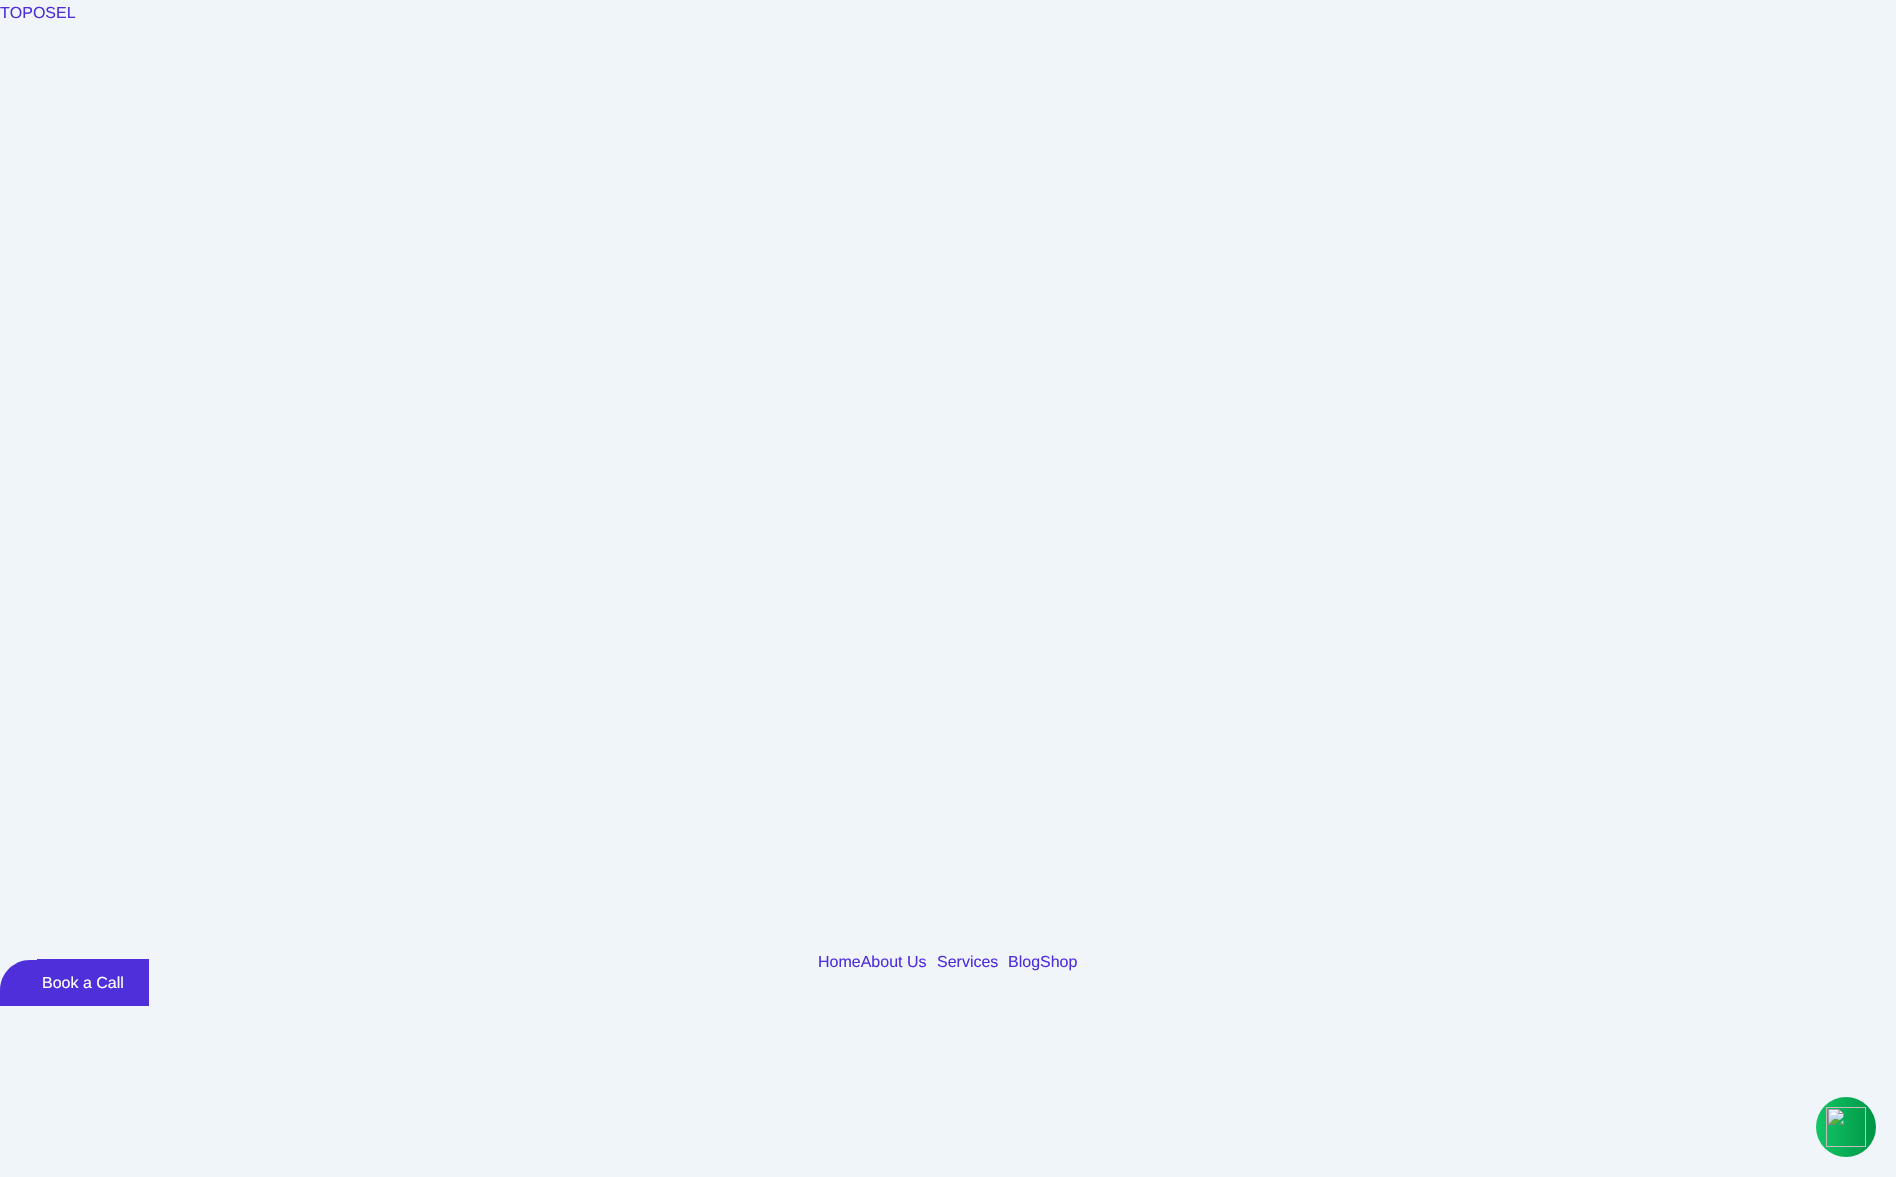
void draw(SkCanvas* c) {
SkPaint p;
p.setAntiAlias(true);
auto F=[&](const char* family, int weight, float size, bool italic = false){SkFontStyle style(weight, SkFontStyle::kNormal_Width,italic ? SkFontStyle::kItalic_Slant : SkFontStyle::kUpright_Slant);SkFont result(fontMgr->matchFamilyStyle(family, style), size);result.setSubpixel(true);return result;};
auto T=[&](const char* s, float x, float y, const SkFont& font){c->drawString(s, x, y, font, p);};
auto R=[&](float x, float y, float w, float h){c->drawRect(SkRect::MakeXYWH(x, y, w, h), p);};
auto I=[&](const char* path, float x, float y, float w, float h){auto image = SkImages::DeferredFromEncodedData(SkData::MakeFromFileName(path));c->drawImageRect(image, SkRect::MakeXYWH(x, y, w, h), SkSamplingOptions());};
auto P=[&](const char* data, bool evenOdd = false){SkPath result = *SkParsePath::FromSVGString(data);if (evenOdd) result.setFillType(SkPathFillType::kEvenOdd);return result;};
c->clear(0xfff0f5fa);
auto f1 = F("Liberation Sans",400,16);
p.setColor(0xff4e2fda);
T("TOPOSEL",0,18,f1);
T("HomeAbout Us",818,967,f1);
T("Services",937,967,f1);
T("BlogShop",1008,967,f1);
R(37,959,112,47);
p.setColor(0xffffffff);
T("Book a Call",42,988,f1);
p.setColor(0xff4e2fda);
c->drawPath(P("M30 960h7v46h-37v-16c0-16.5 13.5-30 30-30z"),p);
I("1.png",1816,1097,60,60);
}
